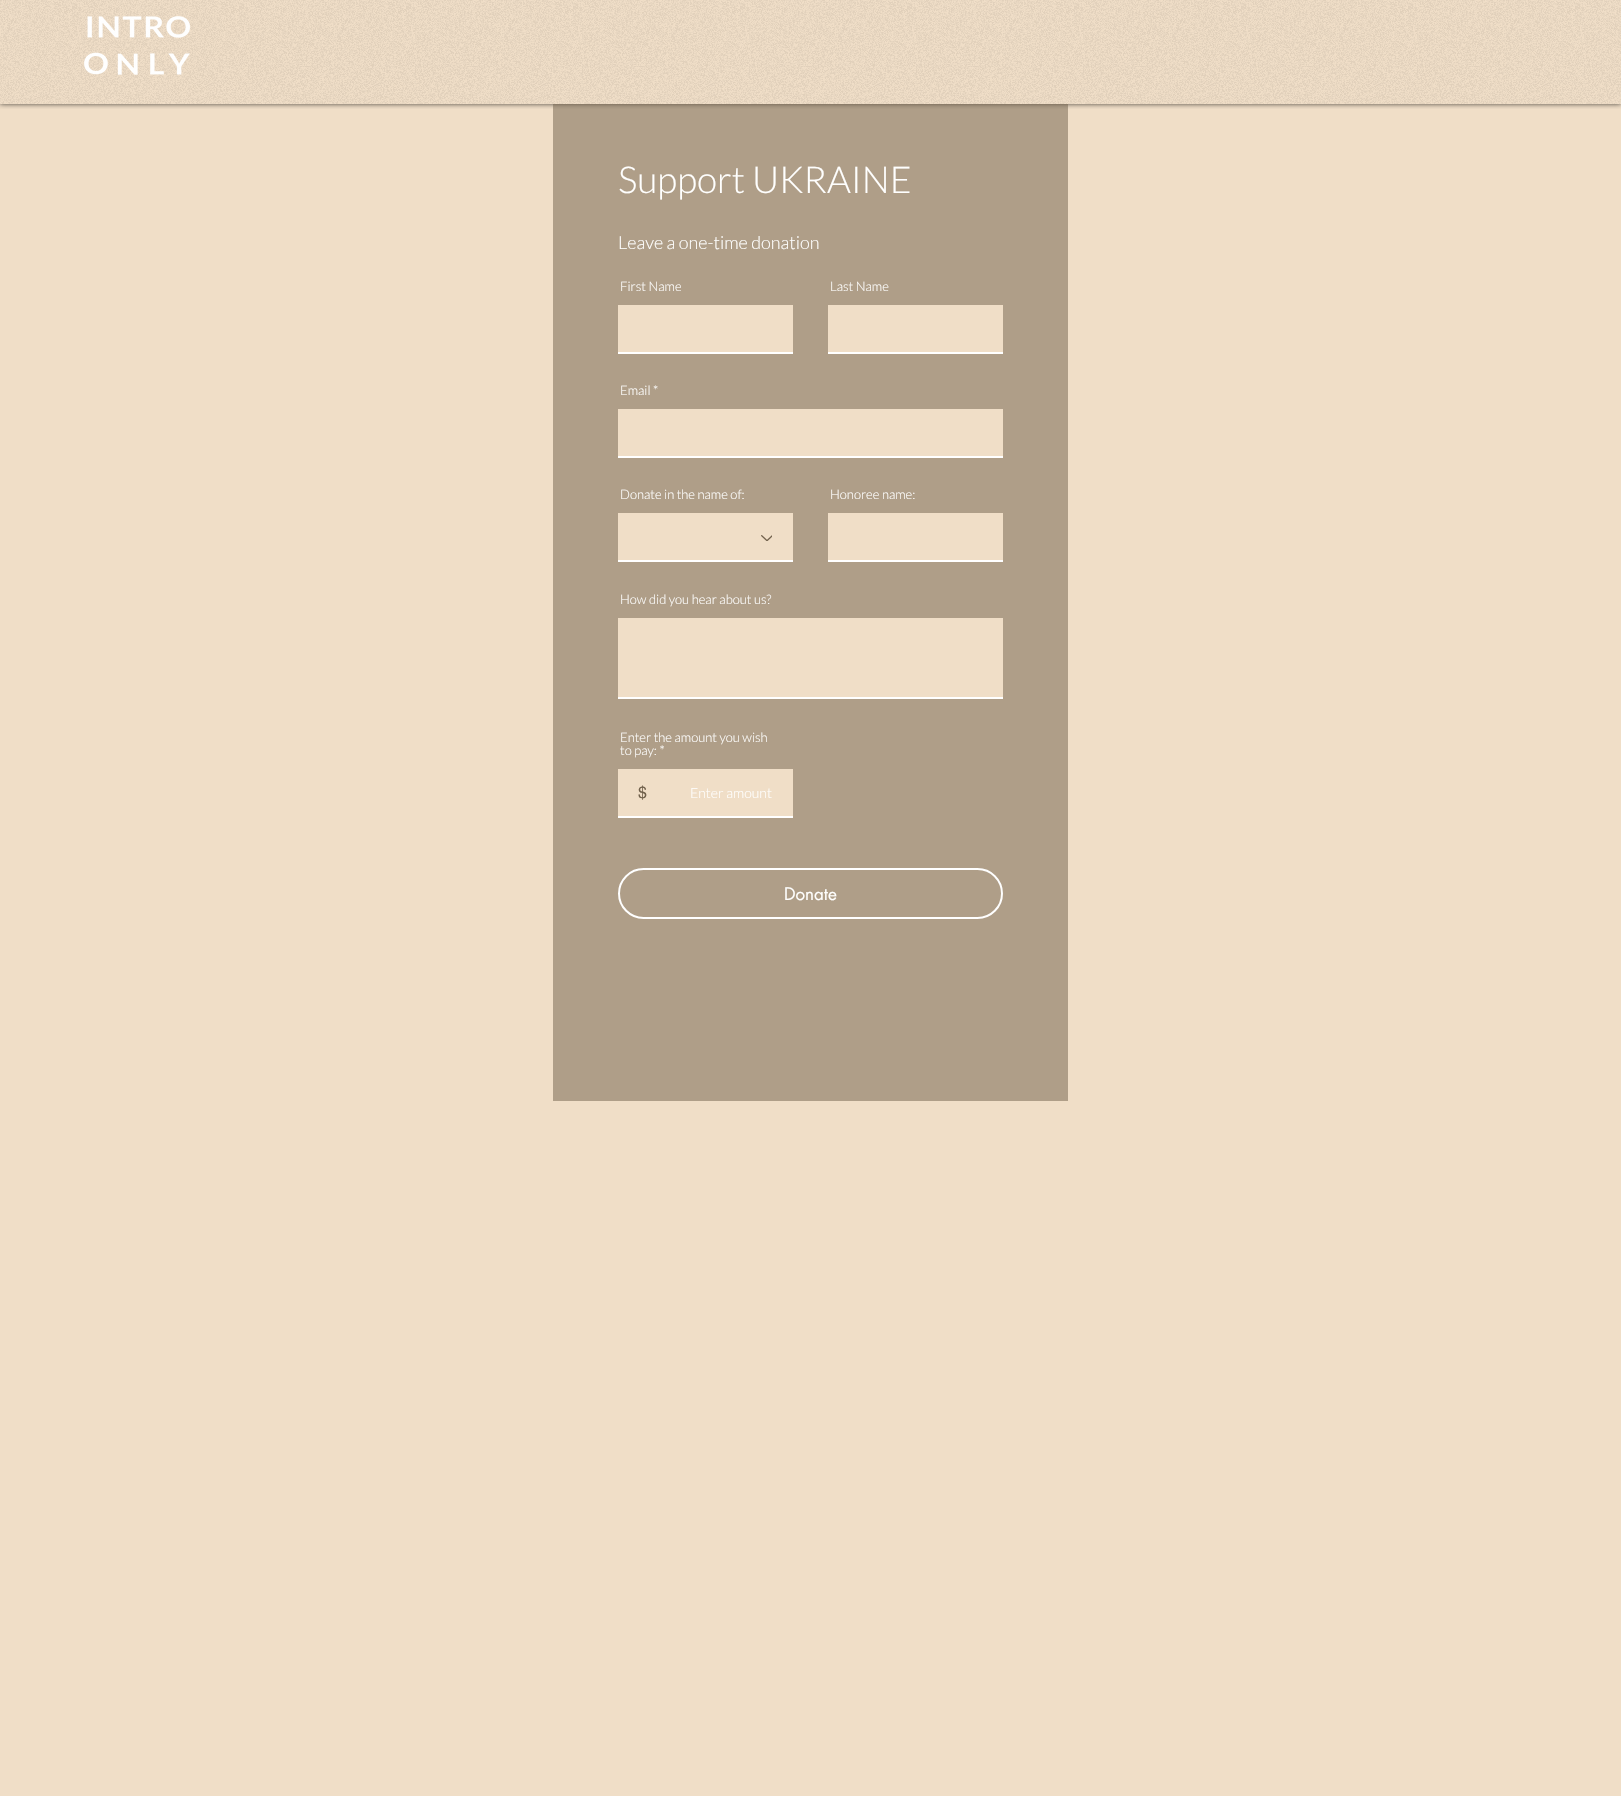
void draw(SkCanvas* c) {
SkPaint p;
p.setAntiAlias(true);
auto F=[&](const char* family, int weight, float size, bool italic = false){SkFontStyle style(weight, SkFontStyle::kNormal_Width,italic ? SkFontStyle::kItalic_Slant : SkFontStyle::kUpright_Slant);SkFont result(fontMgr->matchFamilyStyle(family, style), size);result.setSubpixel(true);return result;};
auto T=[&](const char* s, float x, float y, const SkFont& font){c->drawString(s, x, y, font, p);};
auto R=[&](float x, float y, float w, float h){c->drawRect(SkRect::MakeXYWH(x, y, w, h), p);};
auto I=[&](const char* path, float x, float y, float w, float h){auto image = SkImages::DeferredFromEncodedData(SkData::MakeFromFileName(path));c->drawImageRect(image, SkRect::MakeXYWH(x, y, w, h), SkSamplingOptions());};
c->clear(0xfff0dec7);
c->save();
c->clipRect(SkRect::MakeXYWH(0,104,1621,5));
p.setColor(0xb3000000);
p.setMaskFilter(SkMaskFilter::MakeBlur(kNormal_SkBlurStyle, 2.5));
c->drawRect(SkRect::MakeXYWH(0,0,1621,104),p);
p.setMaskFilter(nullptr);
c->restore();
I("1.png",0,0,1621,104);
I("2.png",84,16,107,59);
p.setColor(0x8270604b);
R(553,104,515,997);
auto f1 = F("Lato",300,37);
p.setColor(0xfffffffe);
T("Support UKRAINE",618,193,f1);
auto f2 = F("Lato",300,18);
T("Leave a one-time donation",618,249,f2);
auto f3 = F("Lato",300,13);
T("First Name",620,291,f3);
p.setColor(0xfff0dec7);
R(618,305,175,47);
p.setColor(0xffffffff);
R(618,352,175,2);
p.setColor(0xfffffffe);
T("Last Name",830,291,f3);
p.setColor(0xfff0dec7);
R(828,305,175,47);
p.setColor(0xffffffff);
R(828,352,175,2);
p.setColor(0xfffffffe);
T("Email *",620,395,f3);
p.setColor(0xfff0dec7);
R(618,409,385,47);
p.setColor(0xffffffff);
R(618,456,385,2);
p.setColor(0xfffffffe);
T("Donate in the name of:",620,499,f3);
p.setColor(0xfff0dec7);
R(618,513,175,47);
p.setColor(0xffffffff);
R(618,560,175,2);
I("3.png",761,535,11,6);
p.setColor(0xfffffffe);
T("Honoree name:",830,499,f3);
p.setColor(0xfff0dec7);
R(828,513,175,47);
p.setColor(0xffffffff);
R(828,560,175,2);
p.setColor(0xfffffffe);
T("How did you hear about us?",620,604,f3);
p.setColor(0xfff0dec7);
R(618,618,385,79);
p.setColor(0xffffffff);
R(618,697,385,2);
p.setColor(0xfffffffe);
T("Enter the amount you wish",620,742,f3);
T("to pay: *",620,755,f3);
p.setColor(0xfff0dec7);
R(618,769,175,47);
auto f4 = F("helvetica",400,16);
p.setColor(0xff70604b);
T("$",638,798,f4);
p.setColor(0xffffffff);
R(618,816,175,2);
auto f5 = F("Lato",300,14);
p.setColor(0xfffffffe);
T("Enter amount",690,798,f5);
p.setStroke(true);
p.setStrokeWidth(2);
p.setColor(0xffffffff);
c->drawRoundRect(SkRect::MakeXYWH(619,869,383,49),24.5,24.5,p);
auto f6 = F("futura",400,17);
p.setStroke(false);
p.setColor(0xfffffffe);
T("Donate",784,900,f6);
}
